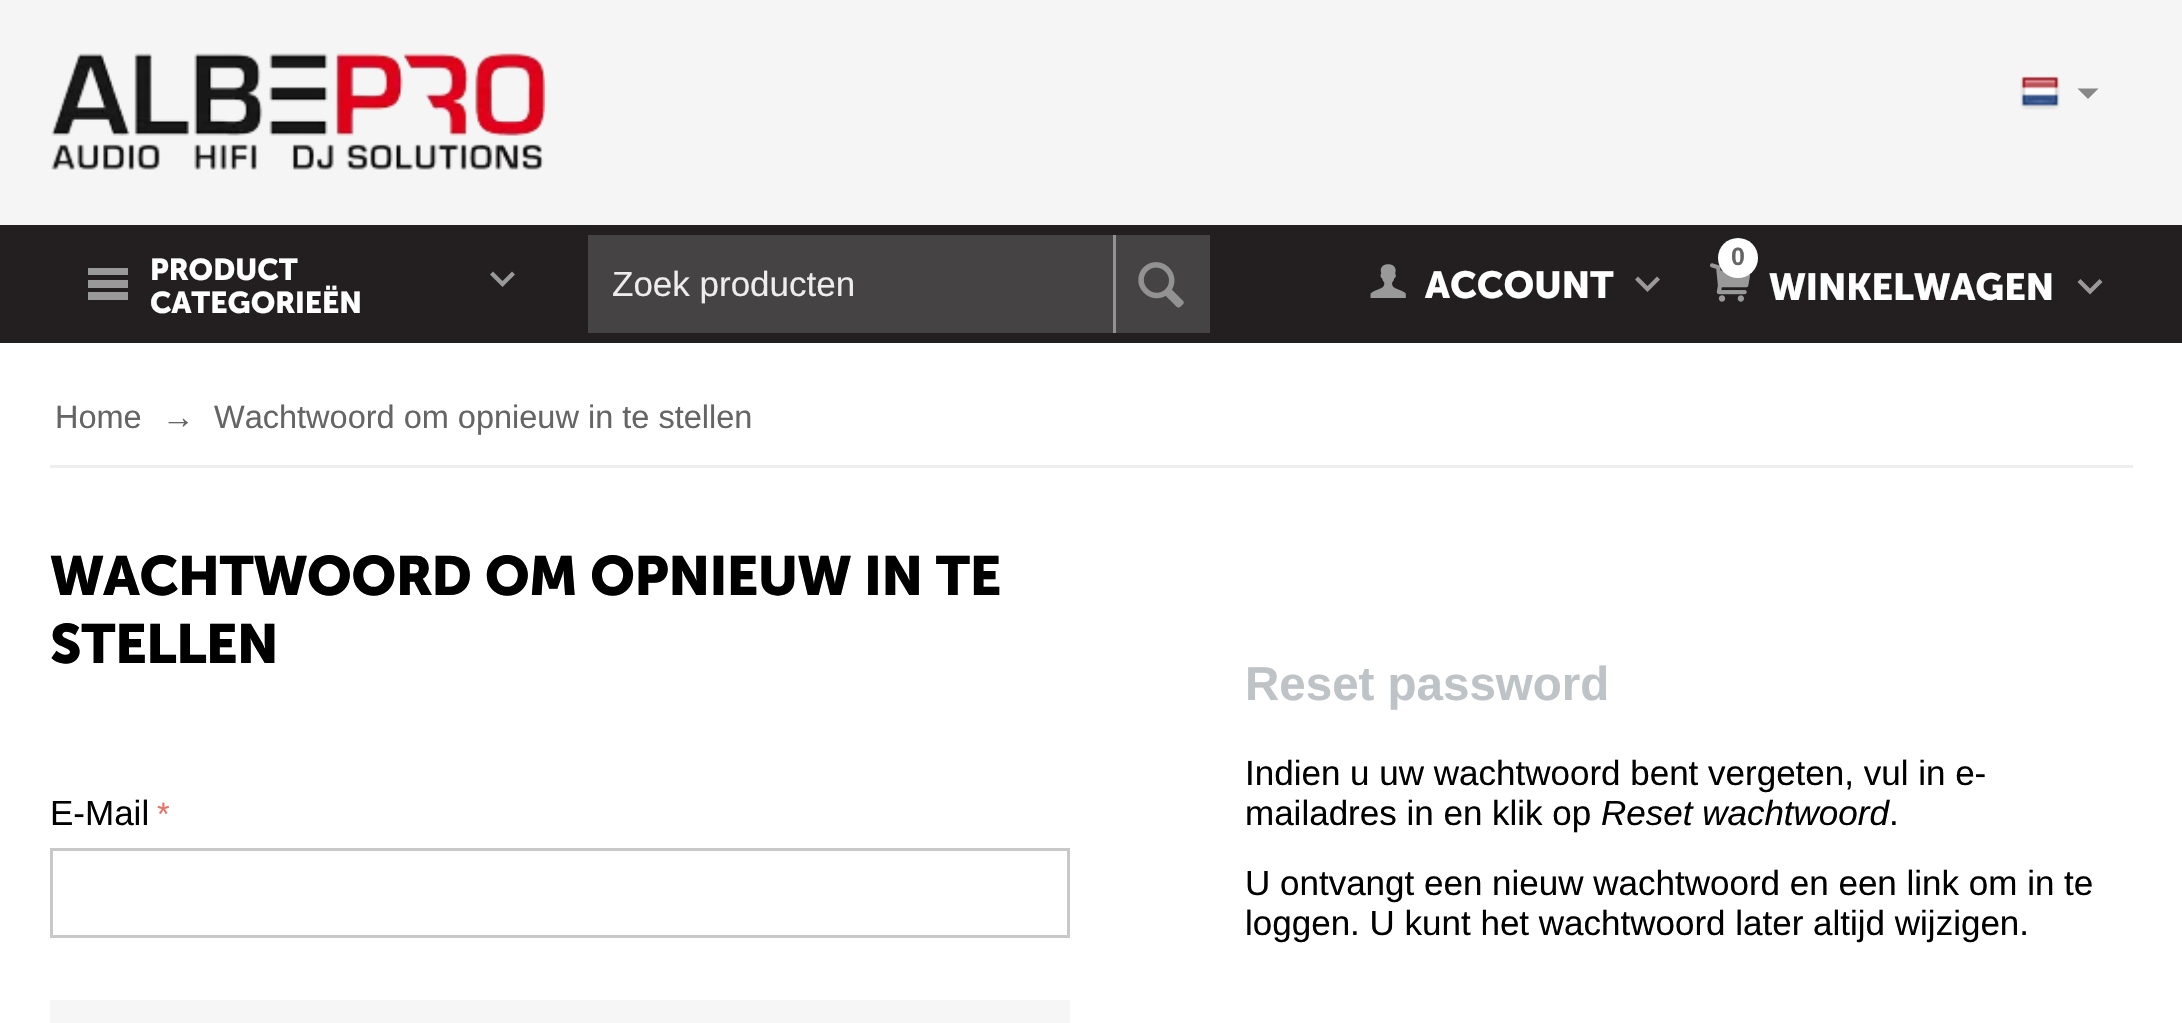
void draw(SkCanvas* c) {
SkPaint p;
p.setAntiAlias(true);
auto F=[&](const char* family, int weight, float size, bool italic = false){SkFontStyle style(weight, SkFontStyle::kNormal_Width,italic ? SkFontStyle::kItalic_Slant : SkFontStyle::kUpright_Slant);SkFont result(fontMgr->matchFamilyStyle(family, style), size);result.setSubpixel(true);return result;};
auto T=[&](const char* s, float x, float y, const SkFont& font){c->drawString(s, x, y, font, p);};
auto L=[&](const char* s, float x, float y, const SkFont& font, const SkPaint& ink, float letter, float word){std::vector<SkGlyphID> glyphs(font.countText(s, strlen(s), SkTextEncoding::kUTF8));std::vector<float> xs(glyphs.size());font.textToGlyphs(s, strlen(s), SkTextEncoding::kUTF8, glyphs);font.getXPos(glyphs, xs, x);float extra = 0;for (size_t i = 0; i < glyphs.size(); i++) {xs[i] += extra;extra += letter + word * (glyphs[i] == font.unicharToGlyph(' '));}c->drawTextBlob(SkTextBlob::MakeFromPosHGlyphs(glyphs, xs, y, font), 0, 0, ink);};
auto R=[&](float x, float y, float w, float h){c->drawRect(SkRect::MakeXYWH(x, y, w, h), p);};
auto I=[&](const char* path, float x, float y, float w, float h){auto image = SkImages::DeferredFromEncodedData(SkData::MakeFromFileName(path));c->drawImageRect(image, SkRect::MakeXYWH(x, y, w, h), SkSamplingOptions());};
auto P=[&](const char* data, bool evenOdd = false){SkPath result = *SkParsePath::FromSVGString(data);if (evenOdd) result.setFillType(SkPathFillType::kEvenOdd);return result;};
c->clear(0xffffffff);
p.setColor(0xfff5f5f5);
R(0,0,2182,225);
I("1.png",51,53,494,117);
I("2.png",2020,76,40,34);
p.setColor(0xff888888);
c->drawPath(P("M2088 99l-10.5-10.5h21z"),p);
p.setColor(0xff231f21);
R(0,225,2182,118);
p.setColor(0xff999999);
c->drawPath(P("M88 268h40v7h-40zm0 12h40v8h-40zm0 12h40v8h-40z"),p);
auto f1 = F("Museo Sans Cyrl",700,30);
p.setColor(0xffffffff);
T("PRODUCT",150,280,f1);
p.setColor(0xff999999);
c->drawPath(P("M512 271.5l-9.5 9.5l-9.5-9.5l-3 3l12.5 12.5l12.5-12.5z"),p);
p.setColor(0xffffffff);
T("CATEGORIEËN",150,313,f1);
p.setColor(0xff464344);
R(588,235,525,98);
auto f2 = F("Liberation Sans",400,35);
p.setColor(0xffeeeded);
T("Zoek producten",612,296,f2);
p.setColor(0xff464344);
R(1116,235,94,98);
p.setColor(0xff929292);
R(1113,235,3,98);
I("3.png",1138,262,46,46);
I("4.png",1370,264,36,34);
auto f3 = F("Museo Sans Cyrl",700,37.5);
p.setColor(0xffffffff);
T("ACCOUNT",1425,298,f3);
p.setColor(0xff999999);
c->drawPath(P("M1657 276.5l-9.5 9.5l-9.5-9.5l-3 3l12.5 12.5l12.5-12.5z"),p);
I("5.png",1710,263,40,39);
p.setColor(0xffffffff);
c->drawCircle(1738,258,20,p);
auto f4 = F("Liberation Sans",700,25);
p.setColor(0xff656565);
T("0",1731,265,f4);
p.setColor(0xffffffff);
T("WINKELWAGEN",1769,300,f3);
p.setColor(0xff999999);
c->drawPath(P("M2099.5 279l-9.5 9.5l-9.5-9.5l-3 3l12.5 12.5l12.5-12.5z"),p);
p.setColor(0xffeeeeee);
R(50,465,2083,3);
auto f5 = F("Liberation Sans",400,32.5);
p.setColor(0xff656565);
T("Home",55,428,f5);
T("→",162,428,f5);
T("Wachtwoord om opnieuw in te stellen",214,428,f5);
auto f6 = F("Museo Sans Cyrl",700,55);
p.setColor(0xff000000);
L("WACHTWOORD OM OPNIEUW IN TE",50,595,f6,p,-.55,0);
L("STELLEN",50,663,f6,p,-.55,0);
T("E-Mail",50,825,f2);
p.setColor(0xffea7162);
T("*",157,825,f5);
p.setStroke(true);
p.setStrokeWidth(3);
p.setColor(0xffc8c8c8);
c->drawRect(SkRect::MakeXYWH(51.5,849.5,1017,87),p);
p.setStroke(false);
p.setColor(0xfff6f6f6);
R(50,1000,1020,23);
auto f7 = F("Liberation Sans",700,47.5);
p.setColor(0xffbdc3c7);
T("Reset password",1245,700,f7);
p.setColor(0xff000000);
T("Indien u uw wachtwoord bent vergeten, vul in e-",1245,785,f2);
T("mailadres in en klik op",1245,825,f2);
auto f8 = F("Liberation Sans",400,35,true);
T("Reset wachtwoord",1601,825,f8);
T(".",1889,825,f2);
T("U ontvangt een nieuw wachtwoord en een link om in te",1245,895,f2);
T("loggen. U kunt het wachtwoord later altijd wijzigen.",1245,935,f2);
}
